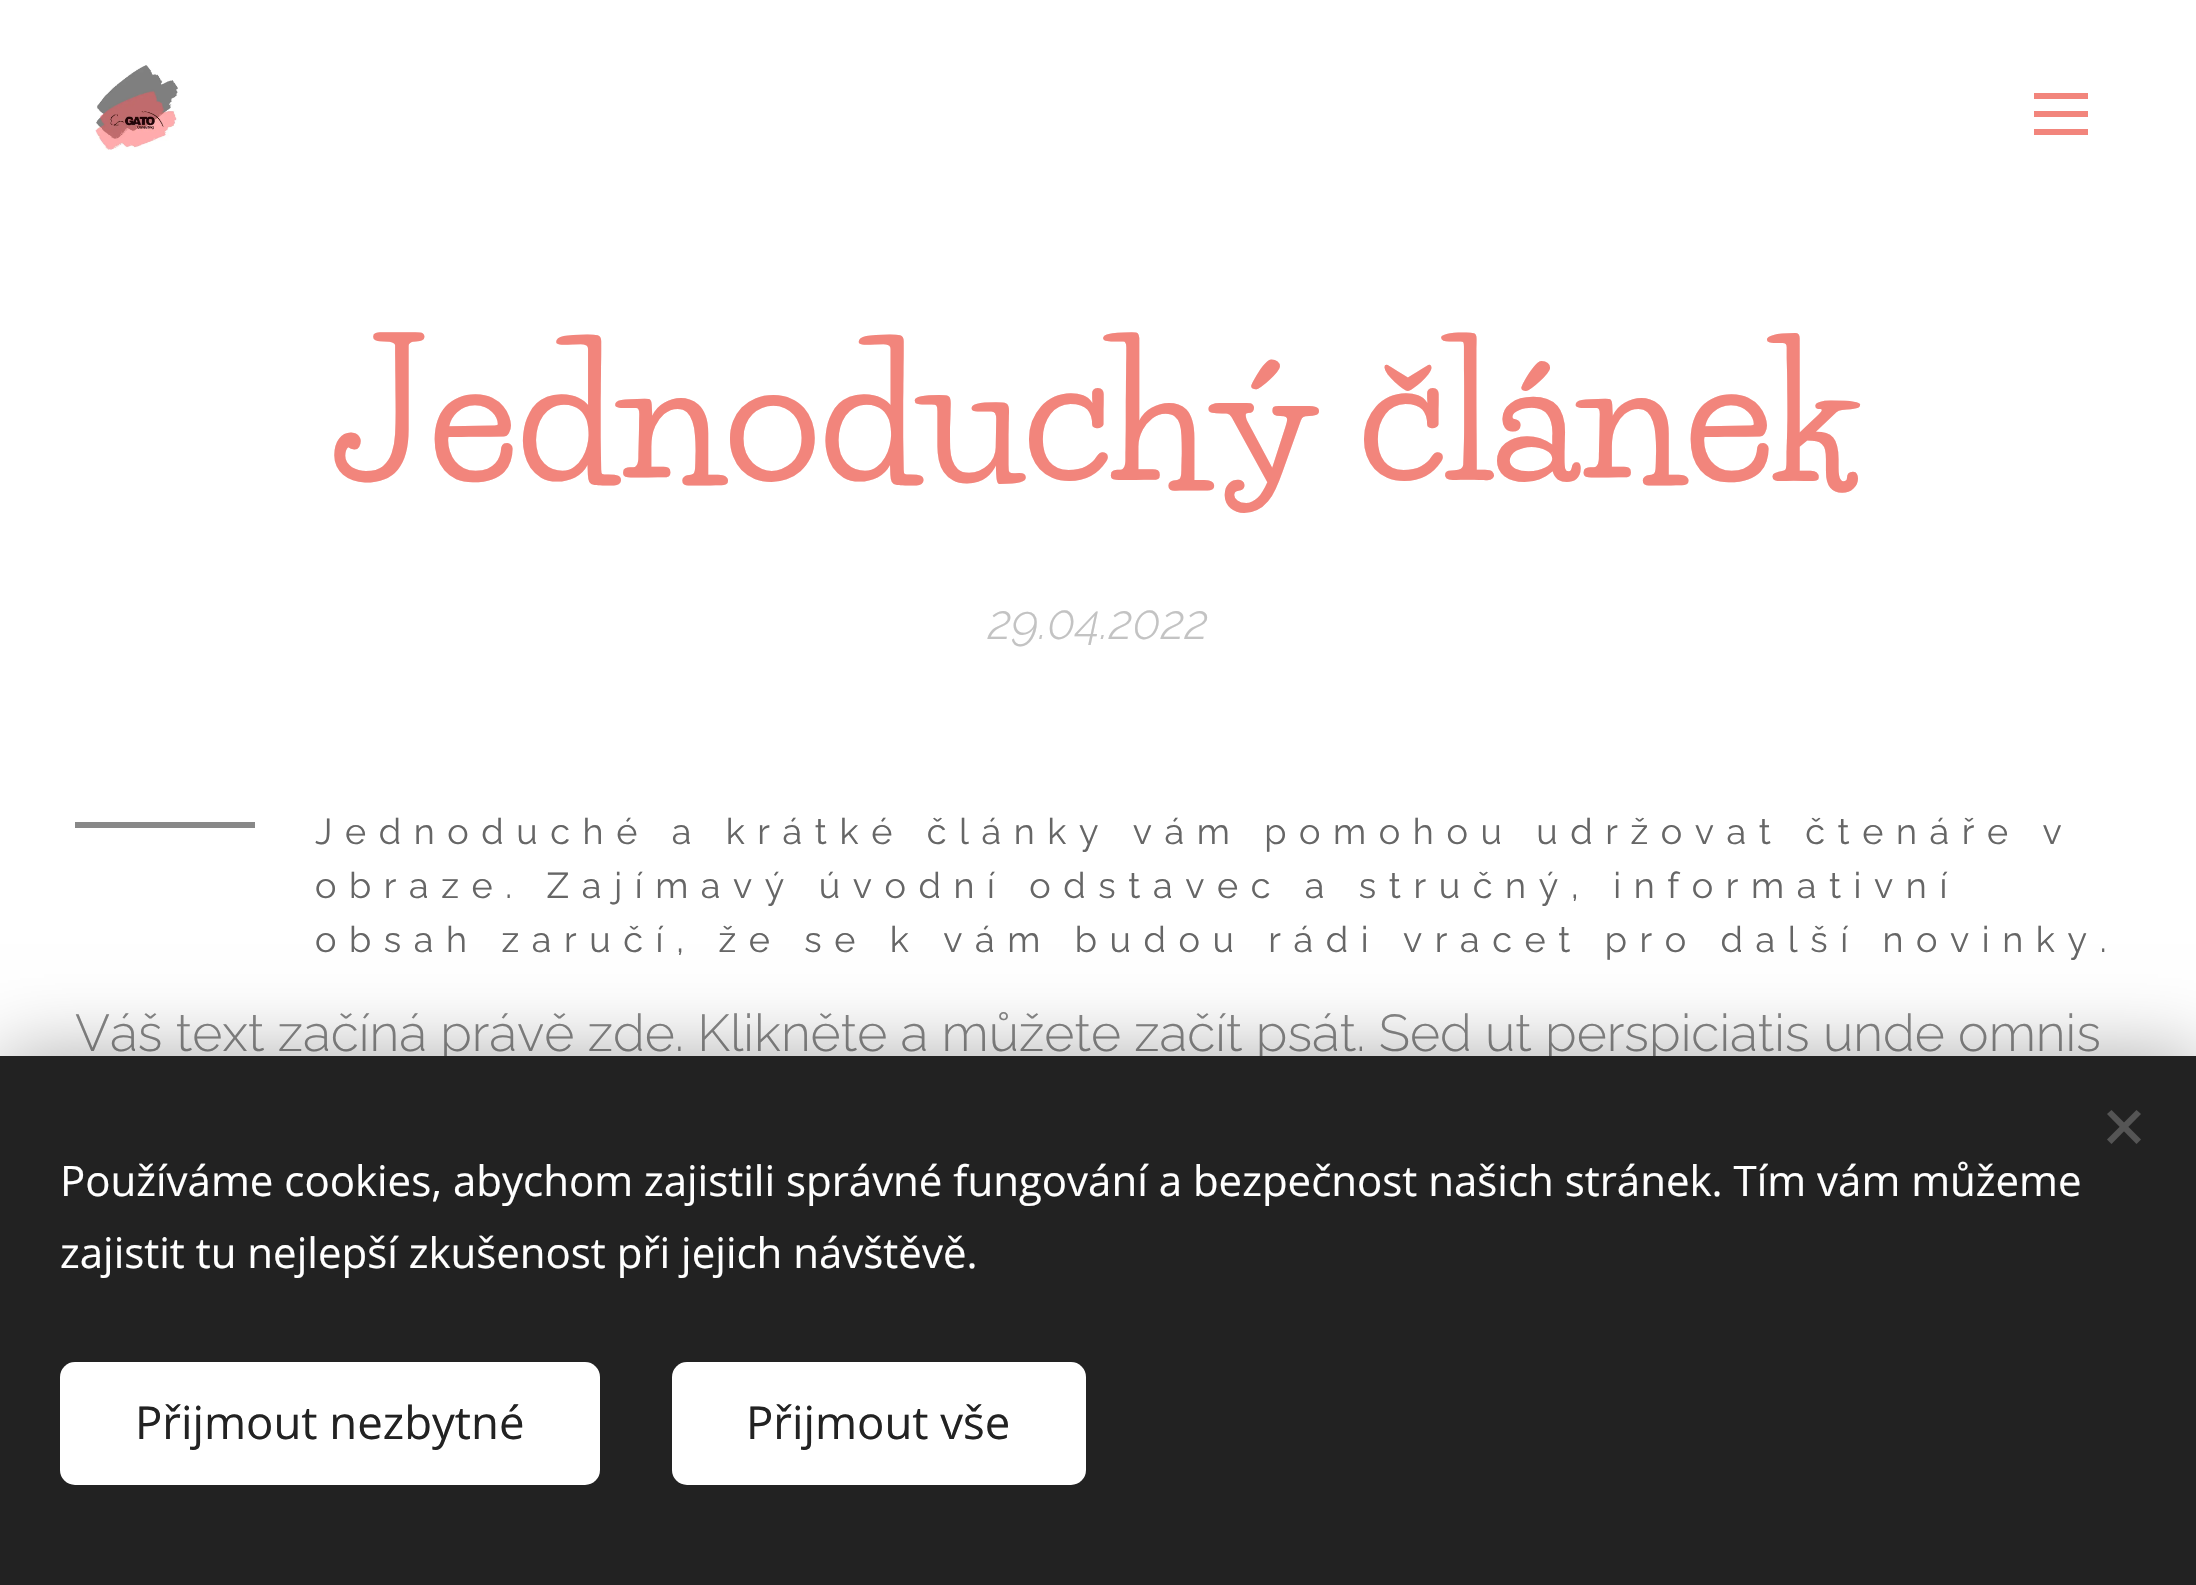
void draw(SkCanvas* c) {
SkPaint p;
p.setAntiAlias(true);
auto F=[&](const char* family, int weight, float size, bool italic = false){SkFontStyle style(weight, SkFontStyle::kNormal_Width,italic ? SkFontStyle::kItalic_Slant : SkFontStyle::kUpright_Slant);SkFont result(fontMgr->matchFamilyStyle(family, style), size);result.setSubpixel(true);return result;};
auto T=[&](const char* s, float x, float y, const SkFont& font){c->drawString(s, x, y, font, p);};
auto L=[&](const char* s, float x, float y, const SkFont& font, const SkPaint& ink, float letter, float word){std::vector<SkGlyphID> glyphs(font.countText(s, strlen(s), SkTextEncoding::kUTF8));std::vector<float> xs(glyphs.size());font.textToGlyphs(s, strlen(s), SkTextEncoding::kUTF8, glyphs);font.getXPos(glyphs, xs, x);float extra = 0;for (size_t i = 0; i < glyphs.size(); i++) {xs[i] += extra;extra += letter + word * (glyphs[i] == font.unicharToGlyph(' '));}c->drawTextBlob(SkTextBlob::MakeFromPosHGlyphs(glyphs, xs, y, font), 0, 0, ink);};
auto R=[&](float x, float y, float w, float h){c->drawRect(SkRect::MakeXYWH(x, y, w, h), p);};
auto Q=[&](float x, float y, float w, float h, float radius){c->drawRoundRect(SkRect::MakeXYWH(x, y, w, h), radius, radius, p);};
auto I=[&](const char* path, float x, float y, float w, float h){auto image = SkImages::DeferredFromEncodedData(SkData::MakeFromFileName(path));c->drawImageRect(image, SkRect::MakeXYWH(x, y, w, h), SkSamplingOptions());};
auto P=[&](const char* data, bool evenOdd = false){SkPath result = *SkParsePath::FromSVGString(data);if (evenOdd) result.setFillType(SkPathFillType::kEvenOdd);return result;};
c->clear(0xffffffff);
I("1.png",95,65,83,85);
p.setColor(0xfff2857c);
R(2034,111,54,6);
R(2034,93,54,6);
R(2034,129,54,6);
auto f1 = F("Life Savers",700,180);
T("Jednoduchý článek",335,480,f1);
auto f2 = F("Raleway",300,48,true);
p.setColor(0xffc3c3c3);
T("29.04.2022",988,639,f2);
p.setColor(0xff888888);
R(75,822,180,6);
auto f3 = F("Raleway",400,36);
p.setColor(0xff666666);
L("Jednoduché a krátké články vám pomohou udržovat čtenáře v",315,844,f3,p,12.6,0);
L("obraze. Zajímavý úvodní odstavec a stručný, informativní",315,898,f3,p,12.6,0);
L("obsah zaručí, že se k vám budou rádi vracet pro další novinky.",315,952,f3,p,12.6,0);
auto f4 = F("Raleway",300,51.6);
p.setColor(0xff888888);
T("Váš text začíná právě zde. Klikněte a můžete začít psát. Sed ut perspiciatis unde omnis",75,1051,f4);
p.setColor(0x54000000);
p.setMaskFilter(SkMaskFilter::MakeBlur(kNormal_SkBlurStyle, 37.5));
c->drawRect(SkRect::MakeXYWH(0,1056,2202,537),p);
p.setMaskFilter(nullptr);
p.setColor(0xff222222);
R(0,1056,2196,529);
p.setColor(0xff555555);
c->drawPath(P("M2107 1139.5l29.5-29.5l4.5 4l-29.5 30z"),p);
c->drawPath(P("M2111.5 1110l29.5 29.5l-4.5 4.5l-29.5-30z"),p);
auto f5 = F("Open Sans",400,42);
p.setColor(0xffffffff);
T("Používáme cookies, abychom zajistili správné fungování a bezpečnost našich stránek. Tím vám můžeme",60,1196,f5);
T("zajistit tu nejlepší zkušenost při jejich návštěvě.",60,1268,f5);
Q(60,1362,540,123,15);
auto f6 = F("Open Sans",400,45.5);
p.setColor(0xff222222);
T("Přijmout nezbytné",135,1439,f6);
p.setColor(0xffffffff);
Q(672,1362,414,123,15);
p.setColor(0xff222222);
T("Přijmout vše",746,1439,f6);
}
